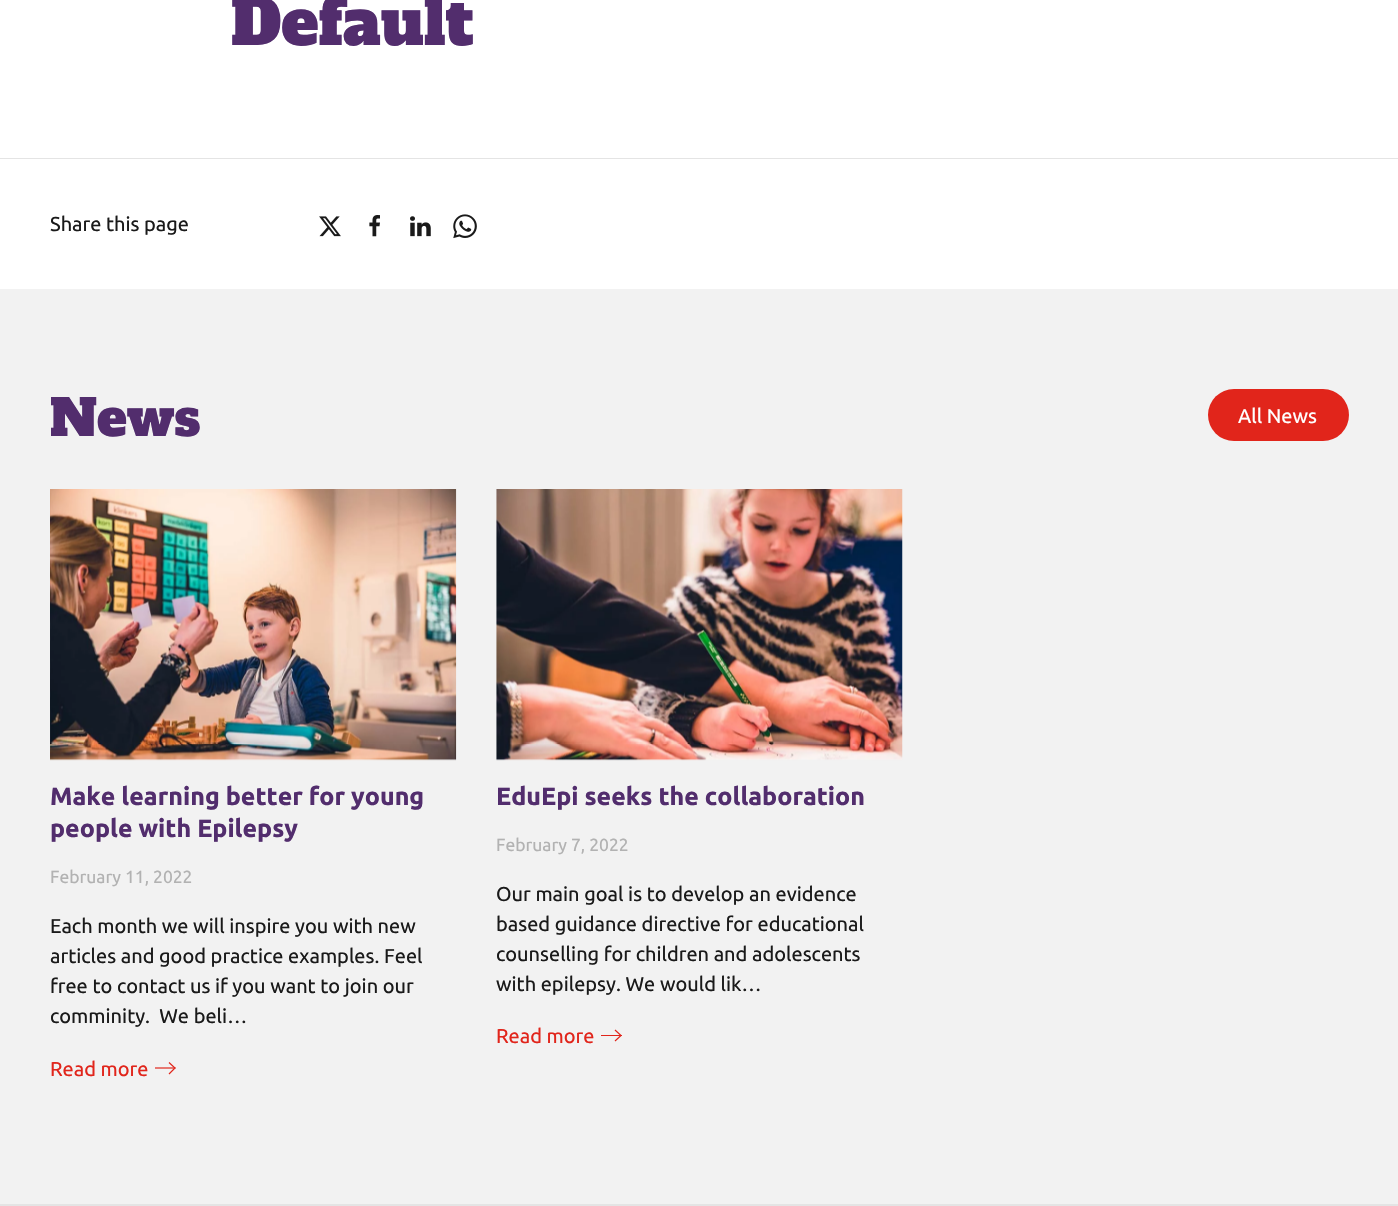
void draw(SkCanvas* c) {
SkPaint p;
p.setAntiAlias(true);
auto F=[&](const char* family, int weight, float size, bool italic = false){SkFontStyle style(weight, SkFontStyle::kNormal_Width,italic ? SkFontStyle::kItalic_Slant : SkFontStyle::kUpright_Slant);SkFont result(fontMgr->matchFamilyStyle(family, style), size);result.setSubpixel(true);return result;};
auto T=[&](const char* s, float x, float y, const SkFont& font){c->drawString(s, x, y, font, p);};
auto R=[&](float x, float y, float w, float h){c->drawRect(SkRect::MakeXYWH(x, y, w, h), p);};
auto Q=[&](float x, float y, float w, float h, float radius){c->drawRoundRect(SkRect::MakeXYWH(x, y, w, h), radius, radius, p);};
auto I=[&](const char* path, float x, float y, float w, float h){auto image = SkImages::DeferredFromEncodedData(SkData::MakeFromFileName(path));c->drawImageRect(image, SkRect::MakeXYWH(x, y, w, h), SkSamplingOptions());};
auto P=[&](const char* data, bool evenOdd = false){SkPath result = *SkParsePath::FromSVGString(data);if (evenOdd) result.setFillType(SkPathFillType::kEvenOdd);return result;};
c->clear(0xffffffff);
auto f1 = F("Alfa Slab One",400,62.5);
p.setColor(0xff522d6d);
T("Default",231,45,f1);
p.setColor(0xffe4e4e4);
R(0,158,1398,1);
auto f2 = F("Ubuntu",400,20);
p.setColor(0xff1a1a1a);
T("Share this page",50,231,f2);
I("1.png",319,216,22,21);
I("2.png",369,215,11,22);
I("3.png",410,216,21,21);
I("4.png",453,214,24,25);
p.setColor(0xfff2f2f2);
R(0,289,1398,915);
auto f3 = F("Alfa Slab One",400,50);
p.setColor(0xff522d6d);
T("News",50,436,f3);
p.setColor(0xffe1251b);
Q(1208,389,141,52,26);
p.setColor(0xffffffff);
T("All News",1238,423,f2);
I("5.png",50,489,407,272);
auto f4 = F("Ubuntu",700,25);
p.setColor(0xff522d6d);
T("Make learning better for young",50,805,f4);
T("people with Epilepsy",50,837,f4);
auto f5 = F("Ubuntu",400,17.5);
p.setColor(0xffb2b2b2);
T("February 11, 2022",50,883,f5);
p.setColor(0xff1a1a1a);
T("Each month we will inspire you with new",50,933,f2);
T("articles and good practice examples. Feel",50,963,f2);
T("free to contact us if you want to join our",50,993,f2);
T("comminity.  We beli…",50,1023,f2);
p.setColor(0xffe1251b);
T("Read more",50,1076,f2);
p.setStroke(true);
p.setStrokeWidth(1.2);
c->drawPath(P("M169 1062.5l6 5.5l-6 6"),p);
c->save();
c->clipRect(SkRect::MakeXYWH(155,1061,21,14));
c->drawPath(P("M147.5 1068h28"),p);
c->restore();
I("6.png",496,489,407,272);
p.setStroke(false);
p.setColor(0xff522d6d);
T("EduEpi seeks the collaboration",496,805,f4);
p.setColor(0xffb2b2b2);
T("February 7, 2022",496,851,f5);
p.setColor(0xff1a1a1a);
T("Our main goal is to develop an evidence",496,901,f2);
T("based guidance directive for educational",496,931,f2);
T("counselling for children and adolescents",496,961,f2);
T("with epilepsy. We would lik…",496,991,f2);
p.setColor(0xffe1251b);
T("Read more",496,1043,f2);
p.setStroke(true);
c->drawPath(P("M615 1030l6 5.5l-6 5.5"),p);
p.setStroke(false);
R(601,1035,21,1);
p.setColor(0xffe4e4e4);
R(0,1204,1398,2);
}
